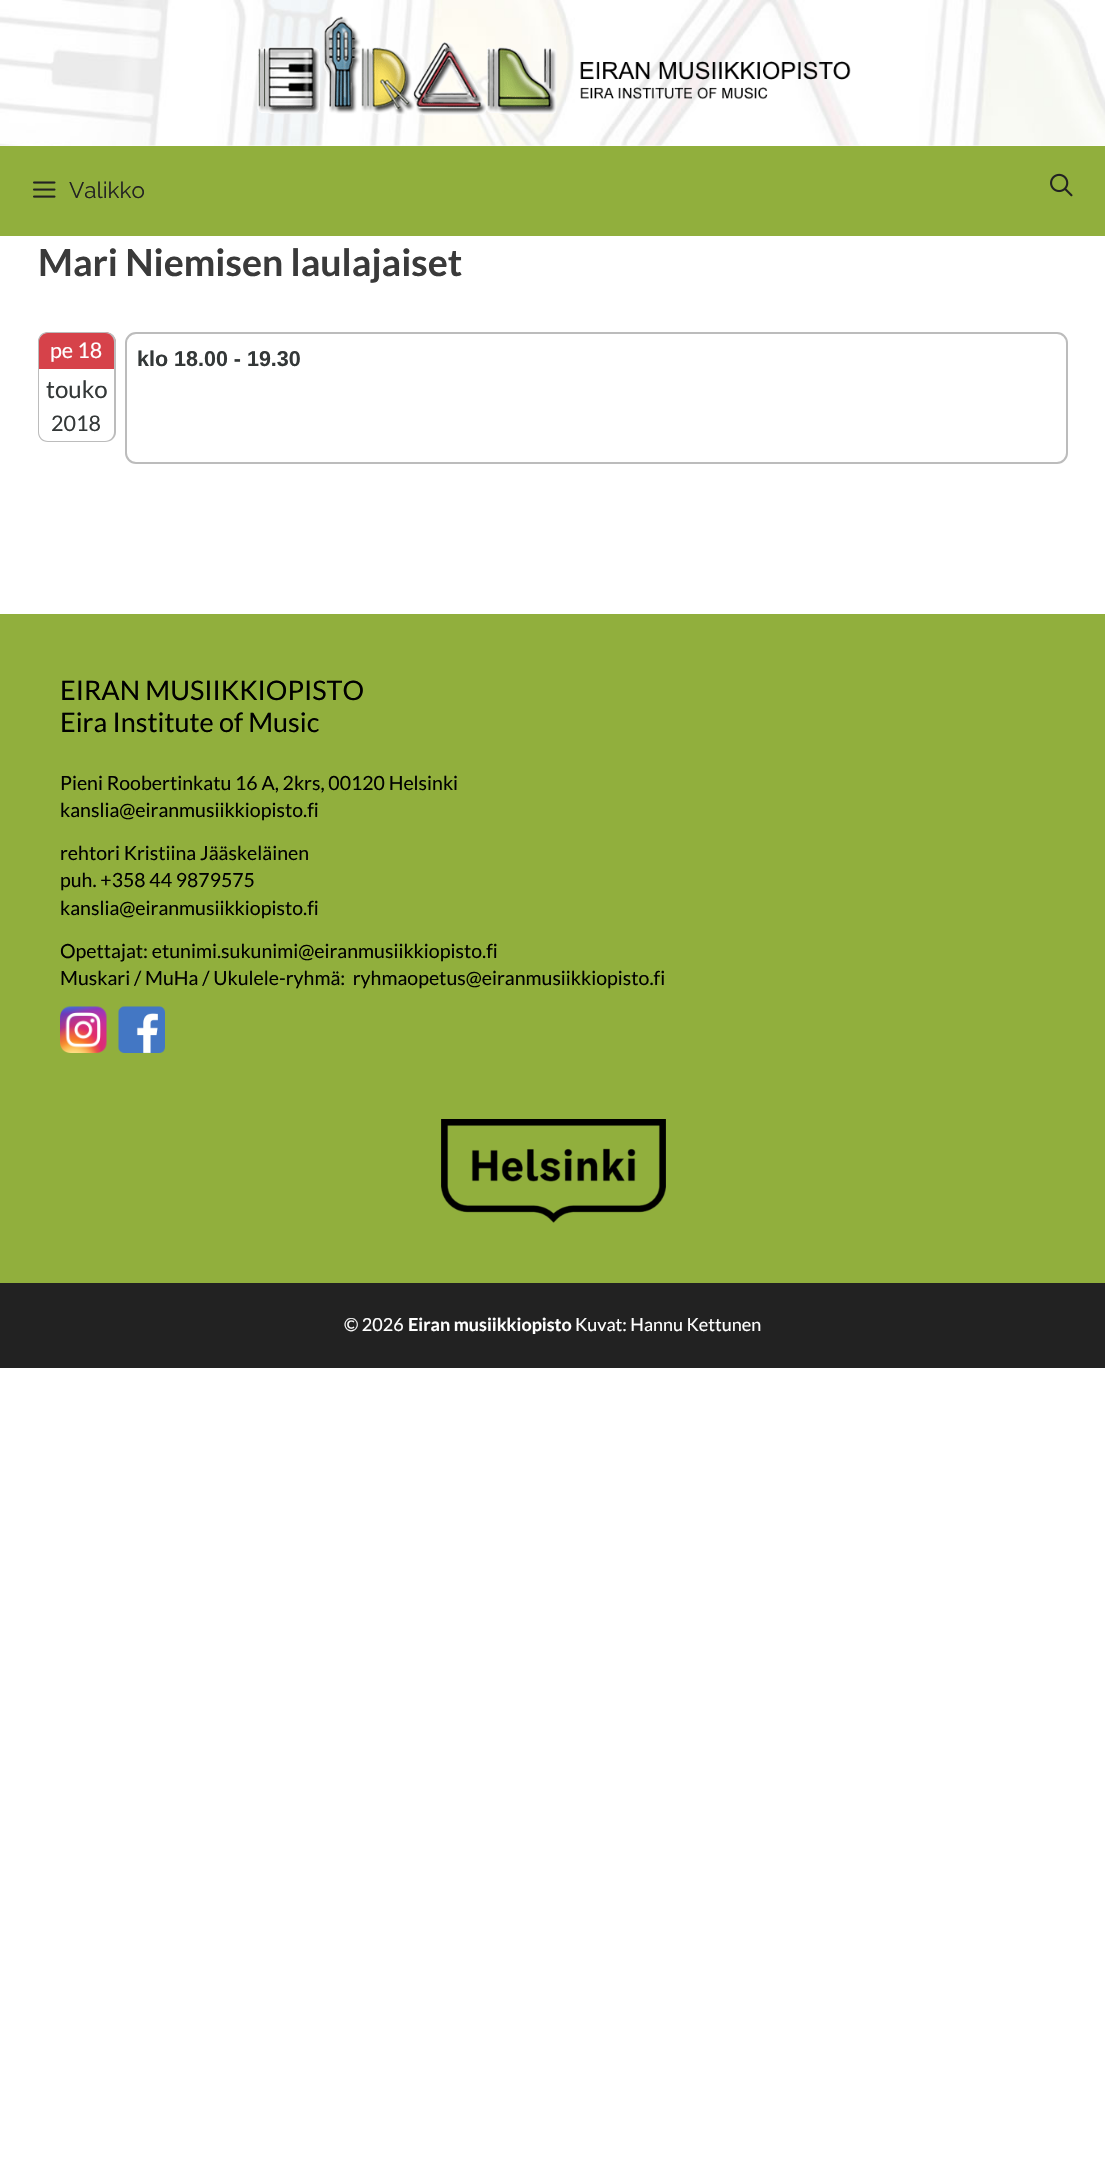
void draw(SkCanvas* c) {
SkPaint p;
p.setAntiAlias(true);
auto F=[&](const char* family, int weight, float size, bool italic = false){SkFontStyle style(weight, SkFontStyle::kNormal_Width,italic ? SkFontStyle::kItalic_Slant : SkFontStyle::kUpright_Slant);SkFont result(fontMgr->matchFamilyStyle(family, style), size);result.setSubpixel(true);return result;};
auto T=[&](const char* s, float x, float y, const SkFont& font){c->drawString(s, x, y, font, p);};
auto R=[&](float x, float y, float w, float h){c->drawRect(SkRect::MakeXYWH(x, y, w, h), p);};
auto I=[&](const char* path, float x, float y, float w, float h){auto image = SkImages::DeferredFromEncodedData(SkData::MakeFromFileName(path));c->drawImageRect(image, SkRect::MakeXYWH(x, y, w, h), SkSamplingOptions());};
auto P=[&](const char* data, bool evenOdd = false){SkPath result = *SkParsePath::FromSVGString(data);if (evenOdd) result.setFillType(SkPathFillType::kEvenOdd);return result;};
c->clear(0xffffffff);
I("1.png",0,0,1105,146);
I("2.png",257,16,594,100);
p.setColor(0xff91af3d);
R(0,146,1105,90);
I("3.png",33,181,23,17);
auto f1 = F("Raleway",400,22.5);
p.setColor(0xff222222);
T("Valikko",69,198,f1);
I("4.png",1050,173,23,24);
auto f2 = F("Lato",700,37.5);
p.setColor(0xff3a3a3a);
T("Mari Niemisen laulajaiset",38,276,f2);
p.setColor(0xffd6424a);
c->drawPath(P("M49 332h56c6 0 11 5 11 11v26h-78v-26c0-6 5-11 11-11z"),p);
p.setColor(0xffbcbcbc);
c->drawPath(P("M48 332h57c6 0 11 4 11 10v27h-78v-27c0-6 4-10 10-10zm0 1h57c5 0 9 4 9 9v27h-75v-27c0-5 4-9 9-9z",true),p);
auto f3 = F("Lato",400,21.5);
p.setColor(0xffffffff);
T("pe 18",50,358,f3);
p.setColor(0xffbcbcbc);
c->drawPath(P("M38 369h78v63c0 6-5 10-11 10h-57c-6 0-10-4-10-10zm1 0h75v63c0 5-4 9-9 9h-57c-5 0-9-4-9-9z",true),p);
auto f4 = F("Lato",400,24);
p.setColor(0xff343838);
T("touko",46,398,f4);
T("2018",51,431,f3);
p.setStroke(true);
p.setStrokeWidth(2);
p.setColor(0xffbcbcbc);
c->drawRoundRect(SkRect::MakeXYWH(126,333,941,130),10,10,p);
auto f5 = F("Liberation Sans",700,21.5);
p.setStroke(false);
p.setColor(0xff343838);
T("klo 18.00 - 19.30",137,366,f5);
p.setColor(0xff91af3d);
R(0,614,1105,669);
auto f6 = F("Lato",400,27);
p.setColor(0xff000000);
T("EIRAN MUSIIKKIOPISTO",60,700,f6);
T("Eira Institute of Music",60,732,f6);
auto f7 = F("Lato",400,19.5);
T("Pieni Roobertinkatu 16 A, 2krs, 00120 Helsinki",60,790,f7);
T("kanslia@eiranmusiikkiopisto.fi",60,817,f7);
T("rehtori Kristiina Jääskeläinen",60,860,f7);
T("puh. +358 44 9879575",60,887,f7);
T("kanslia@eiranmusiikkiopisto.fi",60,915,f7);
T("Opettajat: etunimi.sukunimi@eiranmusiikkiopisto.fi",60,958,f7);
T("Muskari / MuHa / Ukulele-ryhmä:  ryhmaopetus@eiranmusiikkiopisto.fi",60,985,f7);
I("5.png",60,1006,47,47);
I("6.png",118,1006,47,47);
I("7.png",441,1119,225,104);
p.setColor(0xff222222);
R(0,1283,1105,85);
auto f8 = F("Lato",400,18);
p.setColor(0xffffffff);
T("© 2026",344,1331,f8);
auto f9 = F("Lato",700,18);
T("Eiran musiikkiopisto",408,1331,f9);
T("Kuvat: Hannu Kettunen",575,1331,f8);
}
